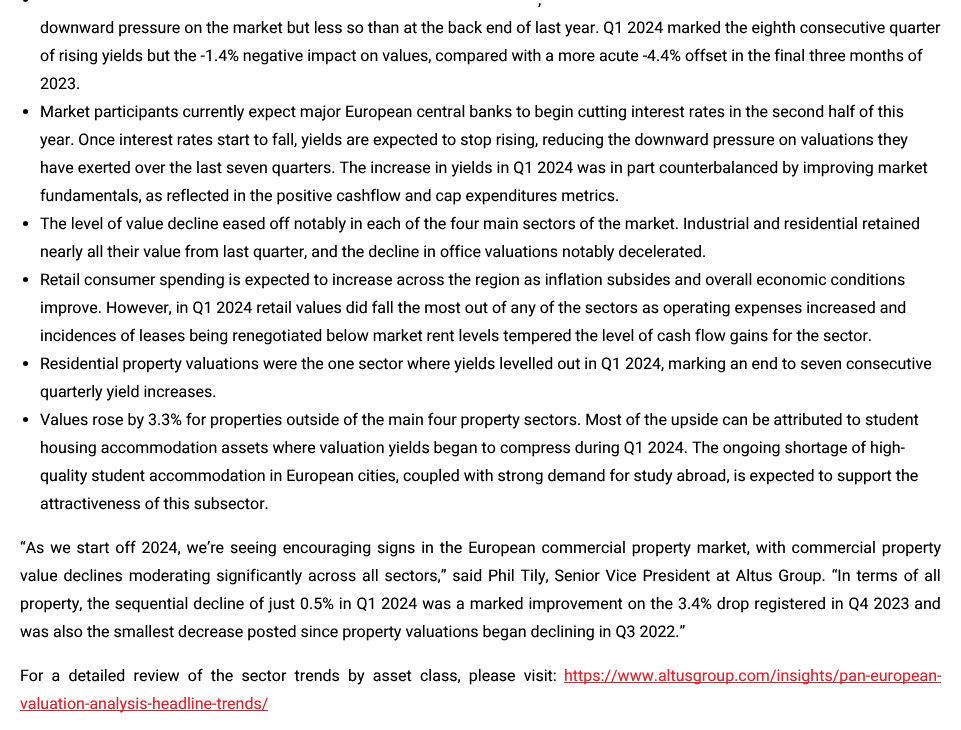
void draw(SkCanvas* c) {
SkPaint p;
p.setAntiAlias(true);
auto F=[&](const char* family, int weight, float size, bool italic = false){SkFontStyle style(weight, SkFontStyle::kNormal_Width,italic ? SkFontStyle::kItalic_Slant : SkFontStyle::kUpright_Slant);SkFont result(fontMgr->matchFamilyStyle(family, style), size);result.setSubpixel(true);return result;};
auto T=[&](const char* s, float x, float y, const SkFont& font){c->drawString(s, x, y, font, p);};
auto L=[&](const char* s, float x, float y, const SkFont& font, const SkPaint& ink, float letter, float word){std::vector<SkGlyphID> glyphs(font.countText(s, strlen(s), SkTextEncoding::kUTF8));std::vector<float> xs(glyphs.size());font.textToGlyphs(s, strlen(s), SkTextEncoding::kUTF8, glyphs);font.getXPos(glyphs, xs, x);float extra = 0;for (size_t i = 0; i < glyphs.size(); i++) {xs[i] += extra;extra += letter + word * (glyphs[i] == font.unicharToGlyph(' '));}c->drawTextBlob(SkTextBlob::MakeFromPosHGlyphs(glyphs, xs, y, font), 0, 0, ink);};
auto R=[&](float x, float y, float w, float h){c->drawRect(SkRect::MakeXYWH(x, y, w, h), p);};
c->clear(0xffffffff);
p.setColor(0xff000000);
c->drawCircle(25.5,-.5,2.5,p);
auto f1 = F("Roboto",400,16);
T(",",538,5,f1);
T("downward pressure on the market but less so than at the back end of last year. Q1 2024 marked the eighth consecutive quarter",40,33,f1);
T("of rising yields but the -1.4% negative impact on values, compared with a more acute -4.4% offset in the final three months of",40,61,f1);
T("2023.",40,89,f1);
c->drawCircle(25.5,111.5,2.5,p);
T("Market participants currently expect major European central banks to begin cutting interest rates in the second half of this",40,117,f1);
T("year. Once interest rates start to fall, yields are expected to stop rising, reducing the downward pressure on valuations they",40,145,f1);
T("have exerted over the last seven quarters. The increase in yields in Q1 2024 was in part counterbalanced by improving market",40,173,f1);
T("fundamentals, as reflected in the positive cashflow and cap expenditures metrics.",40,201,f1);
c->drawCircle(25.5,223.5,2.5,p);
T("The level of value decline eased off notably in each of the four main sectors of the market. Industrial and residential retained",40,229,f1);
T("nearly all their value from last quarter, and the decline in office valuations notably decelerated.",40,257,f1);
c->drawCircle(25.5,279.5,2.5,p);
T("Retail consumer spending is expected to increase across the region as inflation subsides and overall economic conditions",40,285,f1);
T("improve. However, in Q1 2024 retail values did fall the most out of any of the sectors as operating expenses increased and",40,313,f1);
T("incidences of leases being renegotiated below market rent levels tempered the level of cash flow gains for the sector.",40,341,f1);
c->drawCircle(25.5,363.5,2.5,p);
T("Residential property valuations were the one sector where yields levelled out in Q1 2024, marking an end to seven consecutive",40,369,f1);
T("quarterly yield increases.",40,397,f1);
c->drawCircle(25.5,419.5,2.5,p);
T("Values rose by 3.3% for properties outside of the main four property sectors. Most of the upside can be attributed to student",40,425,f1);
T("housing accommodation assets where valuation yields began to compress during Q1 2024. The ongoing shortage of high-",40,453,f1);
T("quality student accommodation in European cities, coupled with strong demand for study abroad, is expected to support the",40,481,f1);
T("attractiveness of this subsector.",40,509,f1);
L("“As we start off 2024, we’re seeing encouraging signs in the European commercial property market, with commercial property",20,553,f1,p,0,1.9);
L("value declines moderating significantly across all sectors,” said Phil Tily, Senior Vice President at Altus Group. “In terms of all",20,581,f1,p,0,1.9);
L("property, the sequential decline of just 0.5% in Q1 2024 was a marked improvement on the 3.4% drop registered in Q4 2023 and",20,609,f1,p,0,.95);
T("was also the smallest decrease posted since property valuations began declining in Q3 2022.”",20,637,f1);
L("For a detailed review of the sector trends by asset class, please visit:",20,681,f1,p,0,4.25);
p.setColor(0xffe61e28);
R(564,682,377,1);
T("https://www.altusgroup.com/insights/pan-european-",564,681,f1);
R(20,710,248,1);
T("valuation-analysis-headline-trends/",20,709,f1);
}
